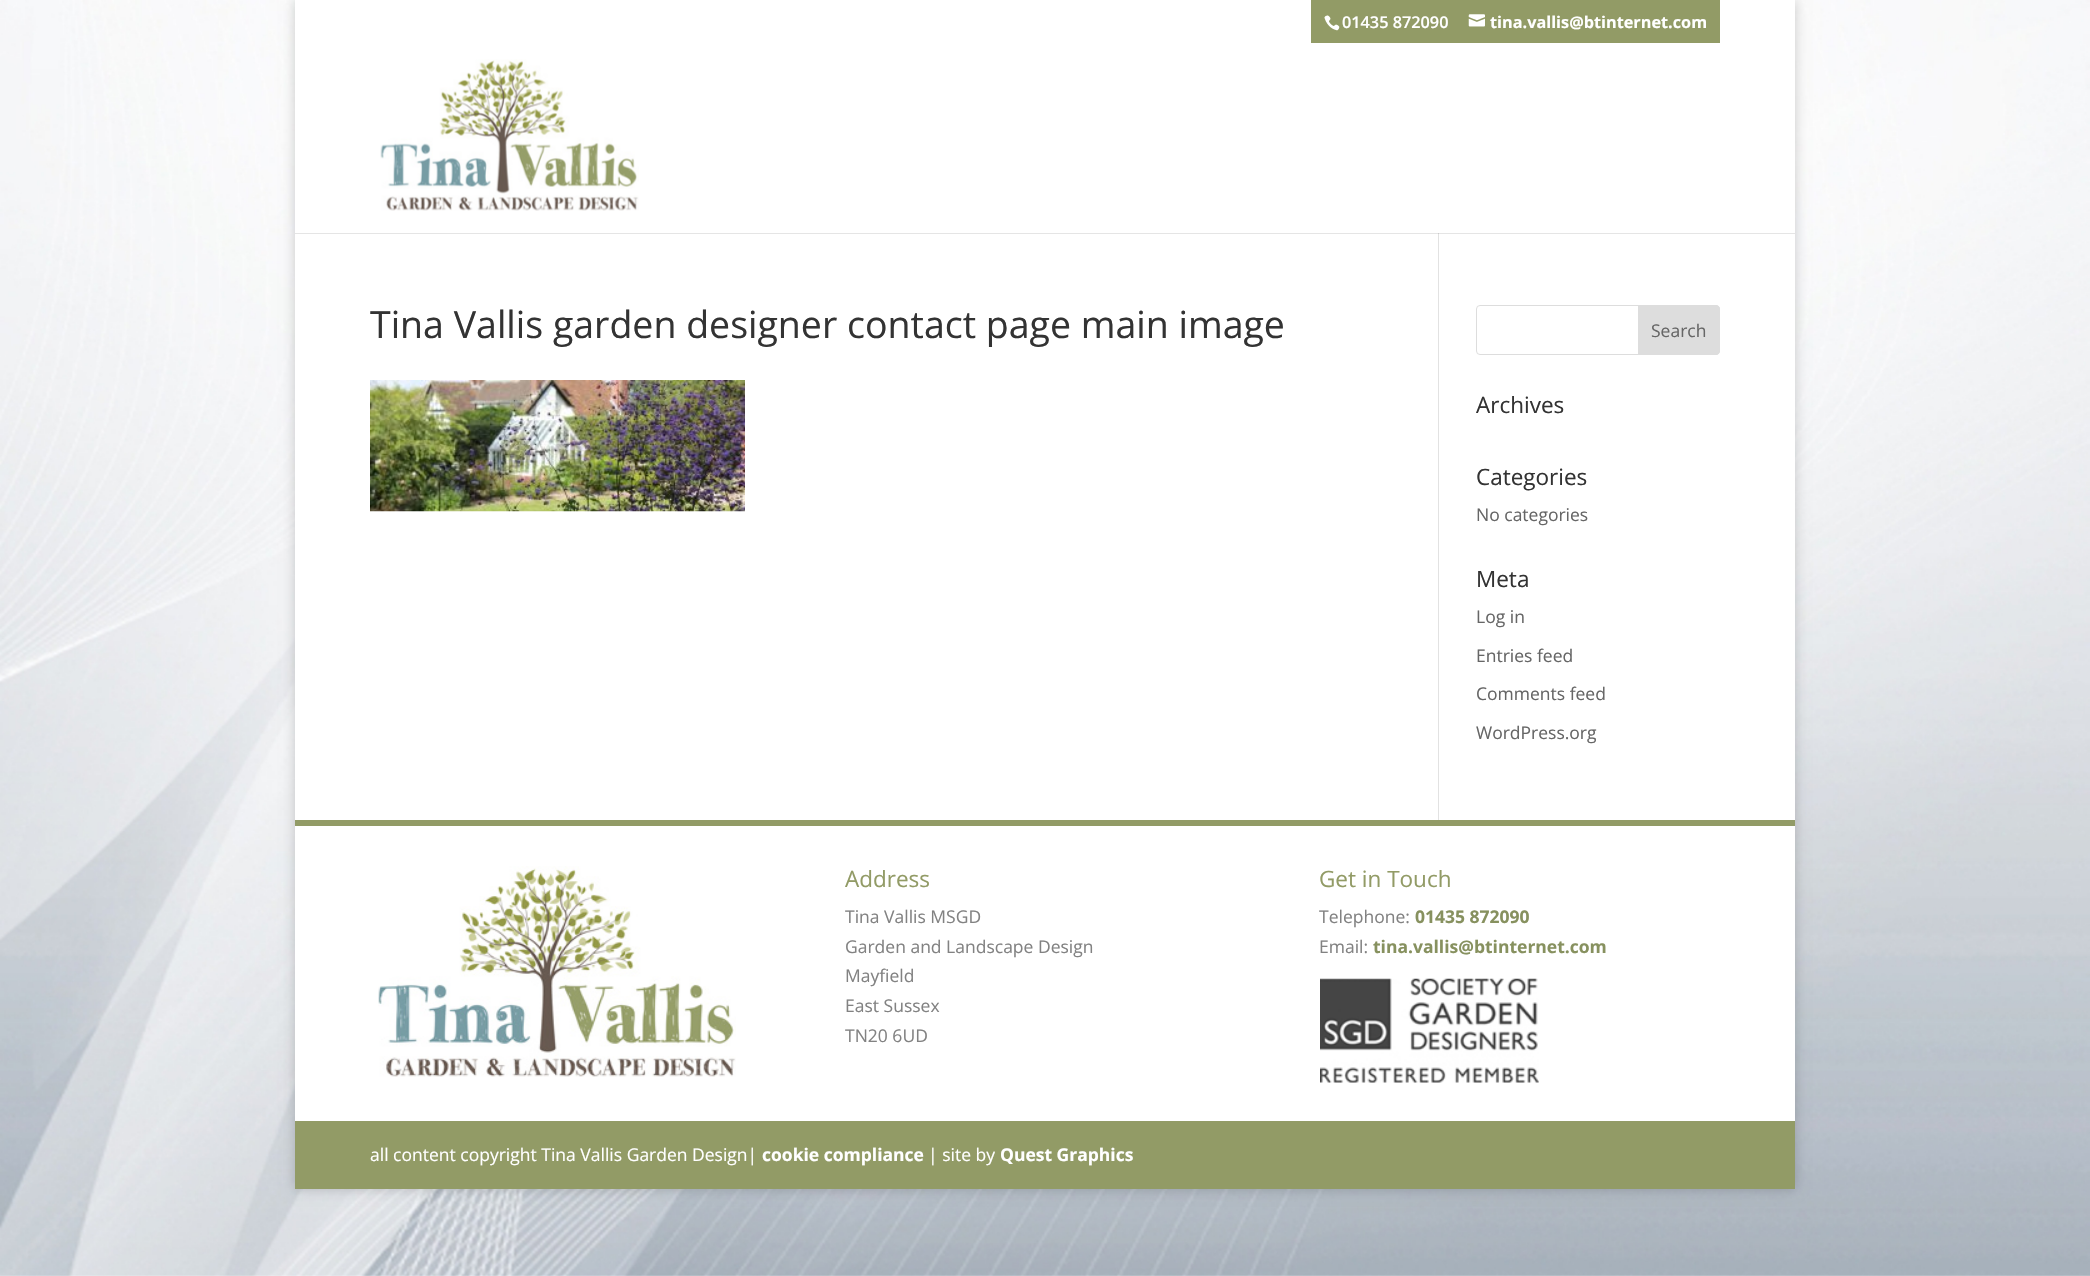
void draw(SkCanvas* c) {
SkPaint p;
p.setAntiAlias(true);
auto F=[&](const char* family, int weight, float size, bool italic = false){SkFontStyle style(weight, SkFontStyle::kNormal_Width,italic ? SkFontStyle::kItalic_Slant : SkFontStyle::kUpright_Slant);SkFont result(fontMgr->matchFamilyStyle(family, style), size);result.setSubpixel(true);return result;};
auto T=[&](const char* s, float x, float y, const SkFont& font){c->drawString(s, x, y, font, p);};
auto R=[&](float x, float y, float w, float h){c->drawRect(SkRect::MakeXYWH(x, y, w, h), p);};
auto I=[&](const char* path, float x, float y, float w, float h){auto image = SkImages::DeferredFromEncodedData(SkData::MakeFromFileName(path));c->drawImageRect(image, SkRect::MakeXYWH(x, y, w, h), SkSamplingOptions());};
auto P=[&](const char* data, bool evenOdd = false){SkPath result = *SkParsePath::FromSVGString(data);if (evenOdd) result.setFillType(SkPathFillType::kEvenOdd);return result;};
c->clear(0xffffffff);
I("1.png",0,0,2090,1276);
p.setColor(0x33000000);
p.setMaskFilter(SkMaskFilter::MakeBlur(kNormal_SkBlurStyle, 6));
c->drawRect(SkRect::MakeXYWH(295,0,1500,1189),p);
p.setMaskFilter(nullptr);
p.setColor(0xffffffff);
R(295,0,1500,43);
p.setColor(0xff929b66);
R(1311,0,409,43);
I("2.png",1324,15,16,16);
auto f1 = F("Open Sans",600,16.25);
p.setColor(0xffffffff);
T("01435 872090",1342,28,f1);
I("3.png",1468,14,17,13);
auto f2 = F("Open Sans",700,16.25);
T("tina.vallis@btinternet.com",1490,28,f2);
R(295,43,1500,777);
p.setColor(0xffe2e2e2);
R(1438,233,1,587);
p.setColor(0x1a000000);
R(295,233,1500,1);
I("4.png",380,59,259,152);
auto f3 = F("Open Sans",400,37.5);
p.setColor(0xff333333);
T("Tina Vallis garden designer contact page main image",370,338,f3);
I("5.png",370,380,375,132);
p.setStroke(true);
p.setStrokeWidth(1);
p.setColor(0xffdddddd);
c->drawRoundRect(SkRect::MakeXYWH(1476.5,305.5,243,49),3.5,3.5,p);
p.setStroke(false);
c->drawPath(P("M1638.5 305.5h77.5c2 0 3.5 1.5 3.5 3.5v42c0 2-1.5 3.5-3.5 3.5h-77.5z"),p);
p.setStroke(true);
c->drawPath(P("M1638.5 305.5h77.5c2 0 3.5 1.5 3.5 3.5v42c0 2-1.5 3.5-3.5 3.5h-77.5z"),p);
auto f4 = F("Open Sans",400,17.5);
p.setStroke(false);
p.setColor(0xff666666);
T("Search",1651,337,f4);
auto f5 = F("Open Sans",400,22.5);
p.setColor(0xff333333);
T("Archives",1476,413,f5);
T("Categories",1476,485,f5);
p.setColor(0xff666666);
T("No categories",1476,521,f4);
p.setColor(0xff333333);
T("Meta",1476,587,f5);
p.setColor(0xff666666);
T("Log in",1476,623,f4);
T("Entries feed",1476,662,f4);
T("Comments feed",1476,700,f4);
T("WordPress.org",1476,739,f4);
p.setColor(0xffffffff);
R(295,826,1500,295);
p.setColor(0xff929b66);
R(295,820,1500,6);
I("6.png",378,866,358,211);
T("Address",845,887,f5);
p.setColor(0xff828282);
T("Tina Vallis MSGD",845,923,f4);
T("Garden and Landscape Design",845,953,f4);
T("Mayfield",845,982,f4);
T("East Sussex",845,1012,f4);
T("TN20 6UD",845,1042,f4);
p.setColor(0xff929b66);
T("Get in Touch",1319,887,f5);
p.setColor(0xff828282);
T("Telephone:",1319,923,f4);
auto f6 = F("Open Sans",700,17.5);
p.setColor(0xff87915f);
T("01435 872090",1415,923,f6);
p.setColor(0xff828282);
T("Email:",1319,953,f4);
p.setColor(0xff87915f);
T("tina.vallis@btinternet.com",1373,953,f6);
I("7.png",1320,978,219,105);
p.setColor(0xff929b66);
R(295,1121,1500,68);
p.setColor(0xffffffff);
T("all content copyright Tina Vallis Garden Design|",370,1161,f4);
T("cookie compliance",762,1161,f6);
T("| site by",928,1161,f4);
T("Quest Graphics",1000,1161,f6);
}
